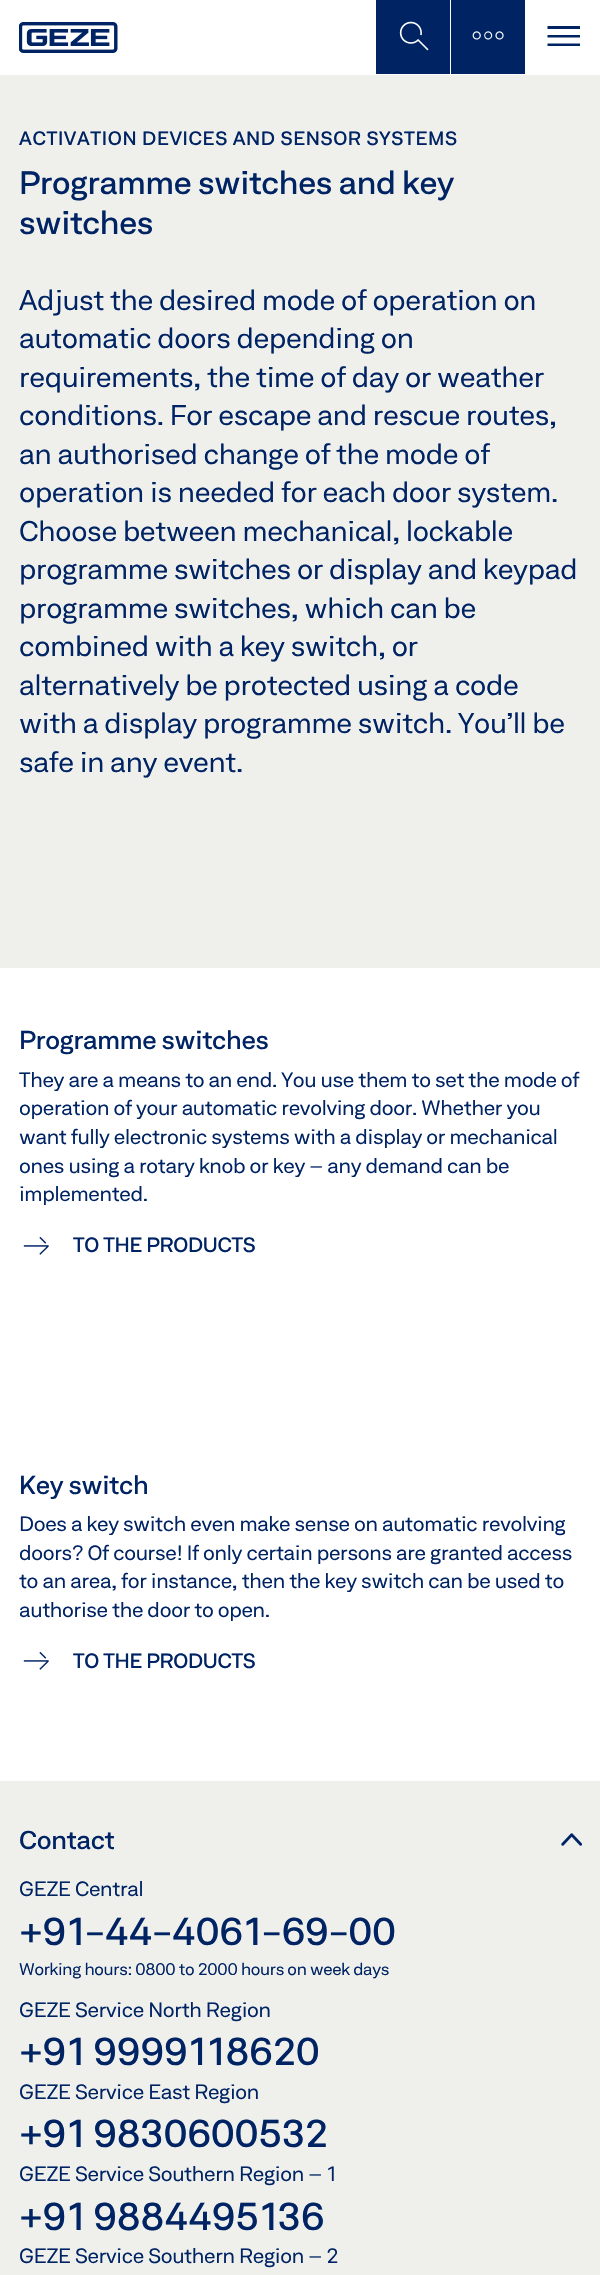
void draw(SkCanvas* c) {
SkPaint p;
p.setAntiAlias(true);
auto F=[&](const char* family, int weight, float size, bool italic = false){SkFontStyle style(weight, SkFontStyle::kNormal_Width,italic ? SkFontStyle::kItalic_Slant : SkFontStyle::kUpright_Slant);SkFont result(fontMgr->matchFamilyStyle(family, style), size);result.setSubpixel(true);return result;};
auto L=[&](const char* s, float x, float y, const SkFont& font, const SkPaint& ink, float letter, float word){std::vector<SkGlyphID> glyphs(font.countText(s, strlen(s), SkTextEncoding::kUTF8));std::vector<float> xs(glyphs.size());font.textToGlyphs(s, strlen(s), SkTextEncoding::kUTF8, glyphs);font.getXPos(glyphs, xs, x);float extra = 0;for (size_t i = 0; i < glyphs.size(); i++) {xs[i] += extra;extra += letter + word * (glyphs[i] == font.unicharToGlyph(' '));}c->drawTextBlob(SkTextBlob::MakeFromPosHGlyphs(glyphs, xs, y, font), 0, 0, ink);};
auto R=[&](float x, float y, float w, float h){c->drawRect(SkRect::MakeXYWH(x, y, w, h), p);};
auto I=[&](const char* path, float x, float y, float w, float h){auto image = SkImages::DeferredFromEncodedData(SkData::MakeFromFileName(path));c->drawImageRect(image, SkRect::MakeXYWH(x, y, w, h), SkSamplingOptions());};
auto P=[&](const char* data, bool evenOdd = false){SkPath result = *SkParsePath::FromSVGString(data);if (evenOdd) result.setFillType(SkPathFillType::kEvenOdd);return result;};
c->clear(0xffffffff);
I("1.png",19,22,99,31);
p.setColor(0xff002364);
R(376,0,74,74);
I("2.png",399,21,30,30);
R(451,0,74,74);
I("3.png",472,31,32,9);
c->drawPath(P("M547.5 35h32.5v2.5h-32.5zm0-9h32.5v3h-32.5zm0 17.5h32.5v2.5h-32.5z"),p);
p.setColor(0xffeff0ec);
R(0,75,600,893);
auto f1 = F("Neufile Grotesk",500,18.75);
p.setColor(0xff002364);
L("ACTIVATION DEVICES AND SENSOR SYSTEMS",19,145,f1,p,.6,0);
auto f2 = F("Neufile Grotesk",500,31.25);
L("Programme switches and key",19,194,f2,p,-.3,0);
L("switches",19,234,f2,p,-.3,0);
auto f3 = F("Neufile Grotesk",400,27.5);
L("Adjust the desired mode of operation on",19,310,f3,p,-.3,0);
L("automatic doors depending on",19,348,f3,p,-.3,0);
L("requirements, the time of day or weather",19,387,f3,p,-.3,0);
L("conditions. For escape and rescue routes,",19,425,f3,p,-.3,0);
L("an authorised change of the mode of",19,464,f3,p,-.3,0);
L("operation is needed for each door system.",19,502,f3,p,-.3,0);
L("Choose between mechanical, lockable",19,541,f3,p,-.3,0);
L("programme switches or display and keypad",19,579,f3,p,-.3,0);
L("programme switches, which can be",19,618,f3,p,-.3,0);
L("combined with a key switch, or",19,656,f3,p,-.3,0);
L("alternatively be protected using a code",19,695,f3,p,-.3,0);
L("with a display programme switch. You’ll be",19,733,f3,p,-.3,0);
L("safe in any event.",19,772,f3,p,-.3,0);
auto f4 = F("Neufile Grotesk",500,25);
L("Programme switches",19,1049,f4,p,-.3,0);
auto f5 = F("Neufile Grotesk",400,20);
L("They are a means to an end. You use them to set the mode of",19,1087,f5,p,-.3,0);
L("operation of your automatic revolving door. Whether you",19,1115,f5,p,-.3,0);
L("want fully electronic systems with a display or mechanical",19,1144,f5,p,-.3,0);
L("ones using a rotary knob or key – any demand can be",19,1173,f5,p,-.3,0);
L("implemented.",19,1201,f5,p,-.3,0);
I("4.png",23,1236,26,19);
auto f6 = F("Neufile Grotesk",500,20);
L("TO THE PRODUCTS",73,1252,f6,p,-.3,0);
L("Key switch",19,1494,f4,p,-.3,0);
L("Does a key switch even make sense on automatic revolving",19,1531,f5,p,-.3,0);
L("doors? Of course! If only certain persons are granted access",19,1560,f5,p,-.3,0);
L("to an area, for instance, then the key switch can be used to",19,1588,f5,p,-.3,0);
L("authorise the door to open.",19,1617,f5,p,-.3,0);
I("4.png",23,1651,26,19);
L("TO THE PRODUCTS",73,1668,f6,p,-.3,0);
p.setColor(0xffeff0ec);
R(0,1781,600,494);
p.setColor(0xff002364);
L("Contact",19,1849,f4,p,-.3,0);
I("5.png",561,1833,21,13);
L("GEZE Central",19,1896,f5,p,-.3,0);
auto f7 = F("Neufile Grotesk",500,37.5);
L("+91-44-4061-69-00",19,1945,f7,p,-.3,0);
auto f8 = F("Neufile Grotesk",400,16.25);
L("Working hours: 0800 to 2000 hours on week days",19,1975,f8,p,-.3,0);
L("GEZE Service North Region",19,2017,f5,p,-.3,0);
L("+91 9999118620",19,2065,f7,p,-.3,0);
L("GEZE Service East Region",19,2099,f5,p,-.3,0);
L("+91 9830600532",19,2147,f7,p,-.3,0);
L("GEZE Service Southern Region – 1",19,2181,f5,p,-.3,0);
L("+91 9884495136",19,2230,f7,p,-.3,0);
L("GEZE Service Southern Region – 2",19,2263,f5,p,-.3,0);
}
